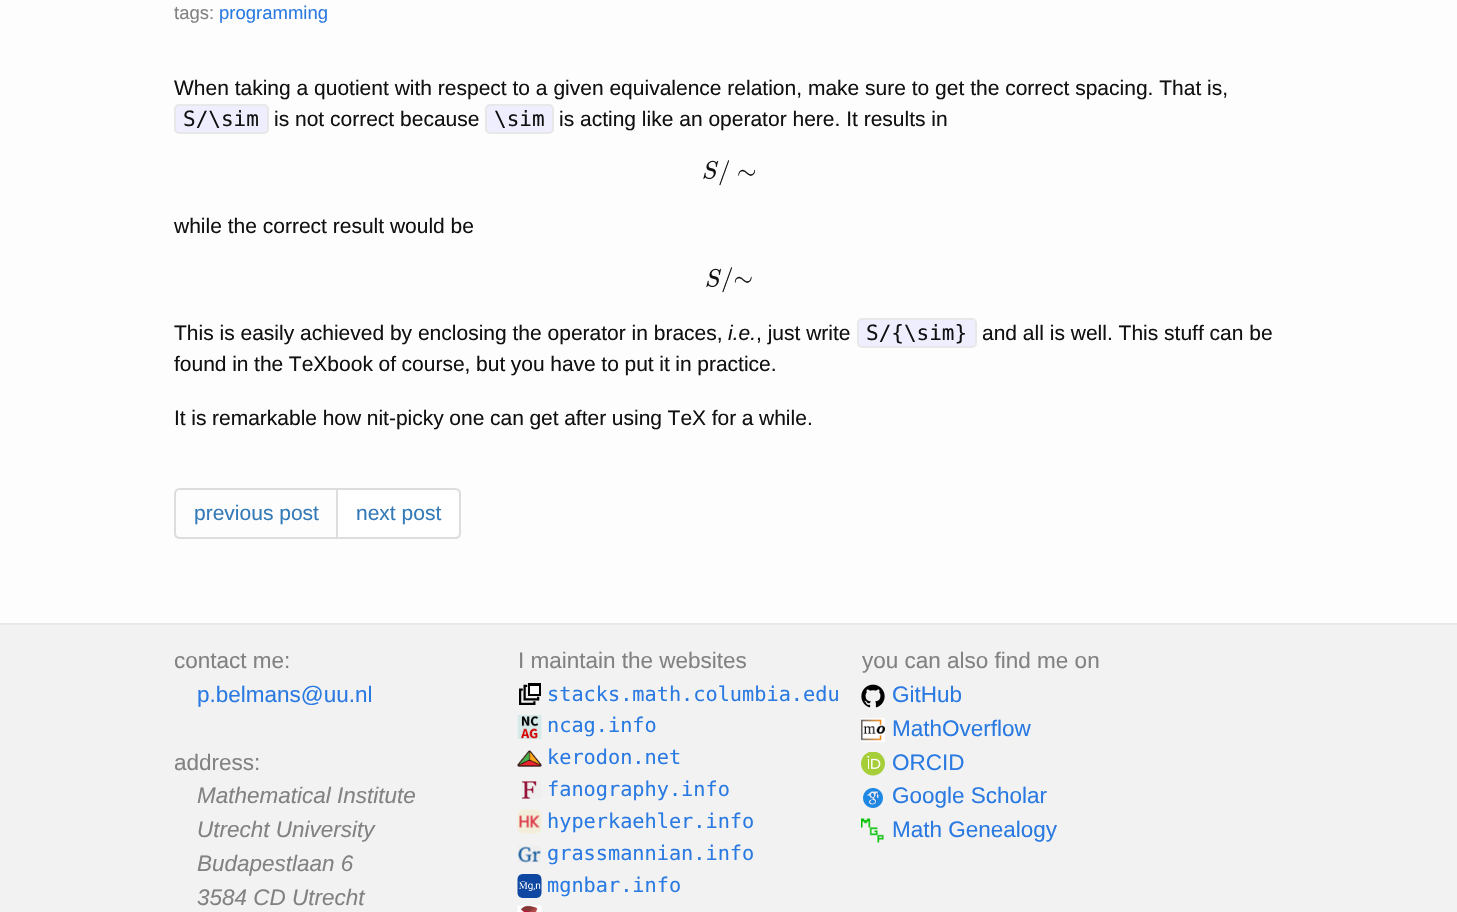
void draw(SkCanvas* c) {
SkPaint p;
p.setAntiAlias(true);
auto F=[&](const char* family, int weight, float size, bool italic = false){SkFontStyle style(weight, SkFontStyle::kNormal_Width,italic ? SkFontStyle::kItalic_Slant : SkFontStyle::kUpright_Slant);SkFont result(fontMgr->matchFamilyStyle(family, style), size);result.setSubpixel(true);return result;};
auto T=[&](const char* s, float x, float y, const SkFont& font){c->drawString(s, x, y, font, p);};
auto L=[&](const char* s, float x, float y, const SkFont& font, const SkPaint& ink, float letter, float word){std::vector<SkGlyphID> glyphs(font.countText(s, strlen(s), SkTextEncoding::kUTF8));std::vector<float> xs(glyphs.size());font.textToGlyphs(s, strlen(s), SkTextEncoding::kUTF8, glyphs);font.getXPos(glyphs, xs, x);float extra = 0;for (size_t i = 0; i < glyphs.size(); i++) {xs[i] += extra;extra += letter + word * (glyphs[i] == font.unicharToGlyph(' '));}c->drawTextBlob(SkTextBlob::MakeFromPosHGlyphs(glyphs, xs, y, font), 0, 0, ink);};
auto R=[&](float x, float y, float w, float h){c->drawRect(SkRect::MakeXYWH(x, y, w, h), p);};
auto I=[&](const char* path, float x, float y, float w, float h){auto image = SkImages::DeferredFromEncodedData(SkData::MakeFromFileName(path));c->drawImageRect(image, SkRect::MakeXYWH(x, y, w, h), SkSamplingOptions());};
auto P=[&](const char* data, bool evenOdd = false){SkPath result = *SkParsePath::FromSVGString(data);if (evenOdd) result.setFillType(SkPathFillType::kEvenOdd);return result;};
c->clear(0xfffdfdfd);
auto f1 = F("Liberation Sans",400,18.5);
p.setColor(0xff828282);
T("tags:",174,19,f1);
p.setColor(0xff2a7ae2);
T("programming",219,19,f1);
auto f2 = F("Liberation Sans",400,21);
p.setColor(0xff111111);
T("When taking a quotient with respect to a given equivalence relation, make sure to get the correct spacing. That is,",174,95,f2);
p.setColor(0xffeeeeff);
c->drawRoundRect(SkRect::MakeXYWH(175,105,93,28),4,4,p);
p.setStroke(true);
p.setStrokeWidth(2);
p.setColor(0xffe8e8e8);
c->drawRoundRect(SkRect::MakeXYWH(175,105,93,28),4,4,p);
auto f3 = F("DejaVu Sans Mono",400,21);
p.setStroke(false);
p.setColor(0xff111111);
T("S/\\sim",183,126,f3);
T("is not correct because",274,126,f2);
p.setColor(0xffeeeeff);
c->drawRoundRect(SkRect::MakeXYWH(486,105,67,28),4,4,p);
p.setStroke(true);
p.setColor(0xffe8e8e8);
c->drawRoundRect(SkRect::MakeXYWH(486,105,67,28),4,4,p);
p.setStroke(false);
p.setColor(0xff111111);
T("\\sim",494,126,f3);
T("is acting like an operator here. It results in",559,126,f2);
I("1.png",703,160,16,20);
auto f4 = F("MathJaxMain",400,25);
T("/",718,179,f4);
T("∼",737,179,f4);
T("while the correct result would be",174,233,f2);
I("1.png",706,268,16,20);
T("/∼",721,286,f4);
T("This is easily achieved by enclosing the operator in braces,",174,340,f2);
auto f5 = F("Liberation Sans",400,21,true);
T("i.e.",728,340,f5);
T(", just write",756,340,f2);
p.setColor(0xffeeeeff);
c->drawRoundRect(SkRect::MakeXYWH(858,319,118,28),4,4,p);
p.setStroke(true);
p.setColor(0xffe8e8e8);
c->drawRoundRect(SkRect::MakeXYWH(858,319,118,28),4,4,p);
p.setStroke(false);
p.setColor(0xff111111);
T("S/{\\sim}",866,340,f3);
T("and all is well. This stuff can be",982,340,f2);
L("found in the TeXbook of course, but you have to put it in practice.",174,371,f2,p,0,-.25);
L("It is remarkable how nit-picky one can get after using TeX for a while.",174,425,f2,p,0,-.25);
p.setStroke(true);
p.setColor(0xffdddddd);
c->drawPath(P("M180 489h157v49h-157c-3 0-5-2-5-5v-39c0-3 2-5 5-5z"),p);
p.setStroke(false);
p.setColor(0xff337ab7);
T("previous post",194,520,f2);
p.setColor(0xffffffff);
c->drawPath(P("M337 489h118c3 0 5 2 5 5v39c0 3-2 5-5 5h-118z"),p);
p.setStroke(true);
p.setColor(0xffdddddd);
c->drawPath(P("M337 489h118c3 0 5 2 5 5v39c0 3-2 5-5 5h-118z"),p);
p.setStroke(false);
p.setColor(0xff337ab7);
T("next post",356,520,f2);
p.setColor(0xfff2f2f2);
R(0,625,1457,287);
p.setColor(0xffe8e8e8);
R(0,623,1457,2);
auto f6 = F("Liberation Sans",400,22.5);
p.setColor(0xff828282);
T("contact me:",174,668,f6);
p.setColor(0xff2a7ae2);
T("p.belmans@uu.nl",197,702,f6);
p.setColor(0xff828282);
T("address:",174,770,f6);
auto f7 = F("Liberation Sans",400,22.5,true);
T("Mathematical Institute",197,803,f7);
T("Utrecht University",197,837,f7);
T("Budapestlaan 6",197,871,f7);
T("3584 CD Utrecht",197,905,f7);
T("I maintain the websites",518,668,f6);
I("2.png",519,683,22,22);
auto f8 = F("DejaVu Sans Mono",400,20.25);
p.setColor(0xff2a7ae2);
T("stacks.math.columbia.edu",547,701,f8);
I("3.png",517,715,25,24);
T("ncag.info",547,732,f8);
I("4.png",517,750,25,17);
T("kerodon.net",547,764,f8);
I("5.png",521,781,20,18);
T("fanography.info",547,796,f8);
I("6.png",517,809,25,25);
T("hyperkaehler.info",547,828,f8);
I("7.png",518,846,23,17);
T("grassmannian.info",547,860,f8);
I("8.png",517,874,25,24);
T("mgnbar.info",547,892,f8);
I("9.png",517,905,25,7);
p.setColor(0xff828282);
T("you can also find me on",862,668,f6);
I("10.png",861,684,24,24);
p.setColor(0xff2a7ae2);
T("GitHub",892,702,f6);
I("11.png",861,718,24,24);
T("MathOverflow",892,736,f6);
I("12.png",861,752,24,24);
T("ORCID",892,770,f6);
I("13.png",863,788,20,20);
T("Google Scholar",892,803,f6);
I("14.png",861,818,23,25);
T("Math Genealogy",892,837,f6);
}
